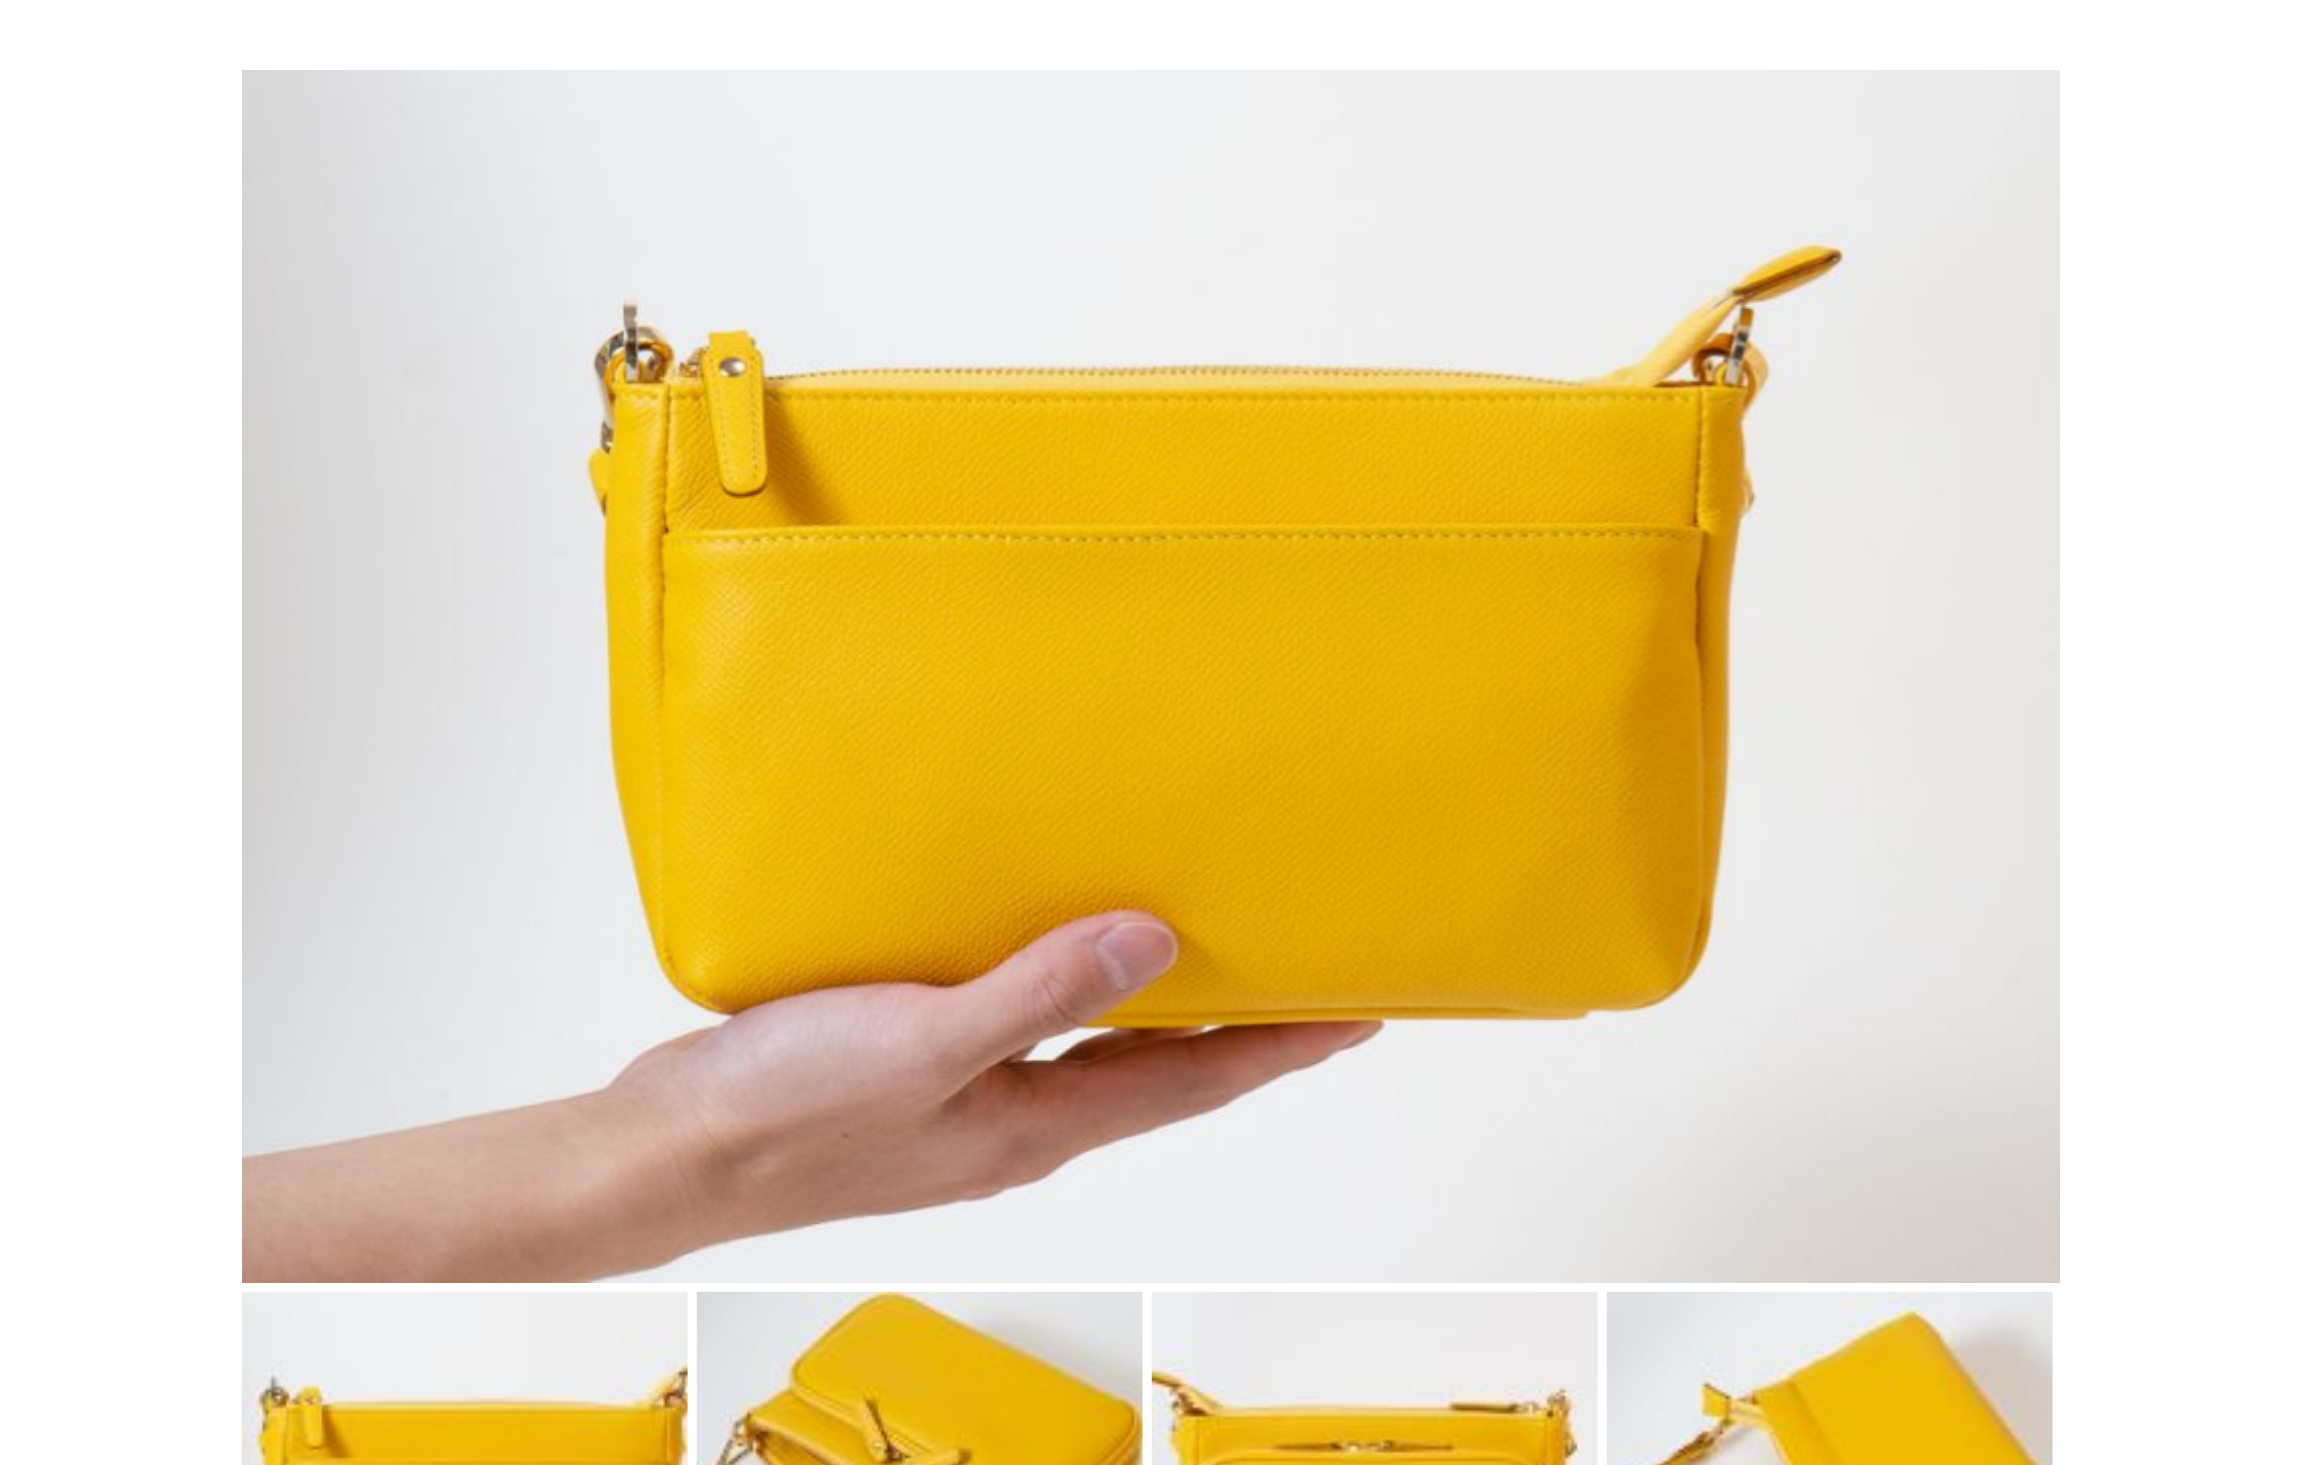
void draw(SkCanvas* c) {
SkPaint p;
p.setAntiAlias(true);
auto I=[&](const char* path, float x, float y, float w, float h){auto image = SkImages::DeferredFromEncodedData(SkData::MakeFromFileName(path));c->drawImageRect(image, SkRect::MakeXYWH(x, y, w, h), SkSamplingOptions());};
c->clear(0xffffffff);
I("1.png",242,70,1818,1213);
I("2.png",241,1291,447,174);
I("3.png",696,1291,447,174);
I("4.png",1151,1291,447,174);
I("5.png",1606,1291,447,174);
}
